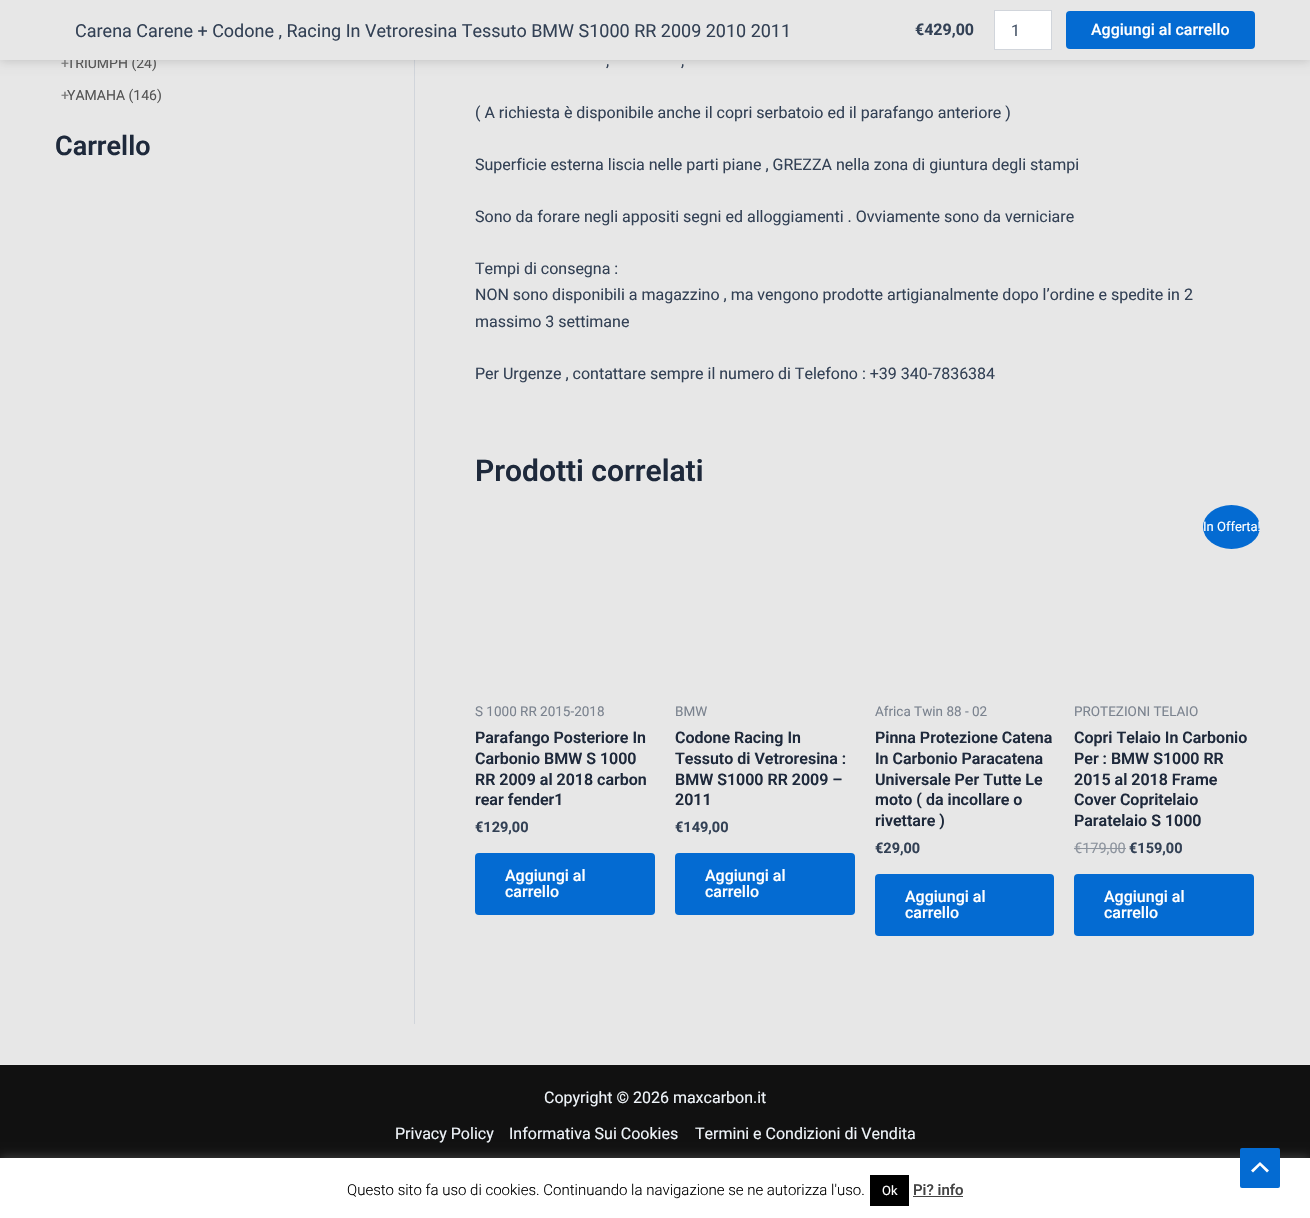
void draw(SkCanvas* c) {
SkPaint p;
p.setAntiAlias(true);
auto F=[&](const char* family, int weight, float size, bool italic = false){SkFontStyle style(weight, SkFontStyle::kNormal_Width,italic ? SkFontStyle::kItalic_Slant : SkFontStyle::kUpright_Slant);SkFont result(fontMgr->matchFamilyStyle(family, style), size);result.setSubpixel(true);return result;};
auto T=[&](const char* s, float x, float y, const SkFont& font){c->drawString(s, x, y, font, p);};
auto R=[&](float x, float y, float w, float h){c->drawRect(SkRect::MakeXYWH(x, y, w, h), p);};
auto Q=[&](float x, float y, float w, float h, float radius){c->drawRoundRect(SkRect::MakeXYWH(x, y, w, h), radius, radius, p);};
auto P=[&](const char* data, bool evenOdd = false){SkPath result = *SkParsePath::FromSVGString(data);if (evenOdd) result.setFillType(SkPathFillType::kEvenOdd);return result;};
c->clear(0xffe7e7e7);
p.setColor(0xffd1d5db);
R(414,60,1,964);
p.setColor(0x0f000000);
p.setMaskFilter(SkMaskFilter::MakeBlur(kNormal_SkBlurStyle, 4.5));
c->drawRect(SkRect::MakeXYWH(0,1,1310,60),p);
p.setMaskFilter(nullptr);
p.setColor(0x1a000000);
p.setMaskFilter(SkMaskFilter::MakeBlur(kNormal_SkBlurStyle, 5));
c->drawRect(SkRect::MakeXYWH(0,1,1310,60),p);
p.setMaskFilter(nullptr);
auto f1 = F("Roboto",400,14);
p.setColor(0xff777777);
T("+",61,68,f1);
p.setColor(0xff555555);
T("TRIUMPH (24)",67,68,f1);
p.setColor(0xffe7e7e7);
R(0,0,1310,60);
auto f2 = F("Roboto",400,18);
p.setColor(0xff334155);
T("Carena Carene + Codone , Racing In Vetroresina Tessuto BMW S1000 RR 2009 2010 2011",75,37,f2);
auto f3 = F("Roboto",700,16);
T("€429,00",915,35,f3);
p.setColor(0xffffffff);
c->drawRect(SkRect::MakeXYWH(994.5,10.5,57,39),p);
p.setStroke(true);
p.setStrokeWidth(1);
p.setColor(0xffd1d5db);
c->drawRect(SkRect::MakeXYWH(994.5,10.5,57,39),p);
auto f4 = F("Roboto",400,16);
p.setStroke(false);
p.setColor(0xff475569);
T("1",1011,36,f4);
p.setColor(0xff046bd2);
Q(1066,11,189,38,4);
auto f5 = F("Roboto",500,16);
p.setColor(0xffffffff);
T("Aggiungi al carrello",1091,35,f5);
p.setColor(0xff777777);
T("+",61,100,f1);
p.setColor(0xff555555);
T("YAMAHA (146)",67,100,f1);
auto f6 = F("Roboto",600,27);
p.setColor(0xff1e293b);
T("Carrello",55,155,f6);
p.setColor(0xff334155);
T(",",606,66,f4);
T(",",681,66,f4);
T("( A richiesta è disponibile anche il copri serbatoio ed il parafango anteriore )",475,118,f4);
T("Superficie esterna liscia nelle parti piane , GREZZA nella zona di giuntura degli stampi",475,170,f4);
T("Sono da forare negli appositi segni ed alloggiamenti . Ovviamente sono da verniciare",475,222,f4);
T("Tempi di consegna :",475,274,f4);
T("NON sono disponibili a magazzino , ma vengono prodotte artigianalmente dopo l’ordine e spedite in 2",475,300,f4);
T("massimo 3 settimane",475,327,f4);
T("Per Urgenze , contattare sempre il numero di Telefono : +39 340-7836384",475,379,f4);
auto f7 = F("Roboto",600,30);
p.setColor(0xff1e293b);
T("Prodotti correlati",475,481,f7);
auto f8 = F("Roboto",400,13.5);
p.setColor(0xff7b838f);
T("S 1000 RR 2015-2018",475,716,f8);
auto f9 = F("Roboto",600,16);
p.setColor(0xff1e293b);
T("Parafango Posteriore In",475,743,f9);
T("Carbonio BMW S 1000",475,764,f9);
T("RR 2009 al 2018 carbon",475,785,f9);
T("rear fender1",475,805,f9);
auto f10 = F("Roboto",700,14.5);
p.setColor(0xff334155);
T("€129,00",475,832,f10);
p.setColor(0xff046bd2);
Q(475,853,180,62,4);
p.setColor(0xffffffff);
T("Aggiungi al",505,881,f5);
T("carrello",505,897,f5);
p.setColor(0xff7b838f);
T("BMW",675,716,f8);
p.setColor(0xff1e293b);
T("Codone Racing In",675,743,f9);
T("Tessuto di Vetroresina :",675,764,f9);
T("BMW S1000 RR 2009 –",675,785,f9);
T("2011",675,805,f9);
p.setColor(0xff334155);
T("€149,00",675,832,f10);
p.setColor(0xff046bd2);
Q(675,853,180,62,4);
p.setColor(0xffffffff);
T("Aggiungi al",705,881,f5);
T("carrello",705,897,f5);
p.setColor(0xff7b838f);
T("Africa Twin 88 - 02",875,716,f8);
p.setColor(0xff1e293b);
T("Pinna Protezione Catena",875,743,f9);
T("In Carbonio Paracatena",875,764,f9);
T("Universale Per Tutte Le",875,785,f9);
T("moto ( da incollare o",875,805,f9);
T("rivettare )",875,826,f9);
p.setColor(0xff334155);
T("€29,00",875,853,f10);
p.setColor(0xff046bd2);
Q(875,874,179,62,4);
p.setColor(0xffffffff);
T("Aggiungi al",905,902,f5);
T("carrello",905,918,f5);
p.setColor(0xff046bd2);
c->drawOval(SkRect::MakeXYWH(1203,505,57,44),p);
auto f11 = F("Roboto",400,13);
p.setColor(0xffffffff);
T("In Offerta!",1203,531,f11);
p.setColor(0xff7b838f);
T("PROTEZIONI TELAIO",1074,716,f8);
p.setColor(0xff1e293b);
T("Copri Telaio In Carbonio",1074,743,f9);
T("Per : BMW S1000 RR",1074,764,f9);
T("2015 al 2018 Frame",1074,785,f9);
T("Cover Copritelaio",1074,805,f9);
T("Paratelaio S 1000",1074,826,f9);
auto f12 = F("Roboto",400,14.5);
p.setColor(0xff8d949e);
T("€179,00",1074,853,f12);
R(1074,848,52,1);
p.setColor(0xff334155);
T("€159,00",1129,853,f10);
p.setColor(0xff046bd2);
Q(1074,874,180,62,4);
p.setColor(0xffffffff);
T("Aggiungi al",1104,902,f5);
T("carrello",1104,918,f5);
p.setColor(0xff111111);
R(0,1065,1310,93);
p.setColor(0xffeaeaea);
R(0,1064,1310,1);
p.setColor(0xfff0f5fa);
T("Copyright © 2026 maxcarbon.it",544,1103,f4);
T("Privacy Policy",395,1139,f4);
T("Informativa Sui Cookies",509,1139,f4);
T("Termini e Condizioni di Vendita",695,1139,f4);
p.setColor(0x4dacabab);
p.setMaskFilter(SkMaskFilter::MakeBlur(kNormal_SkBlurStyle, 5));
c->drawRect(SkRect::MakeXYWH(0,1157,1310,60),p);
p.setMaskFilter(nullptr);
p.setColor(0xffffffff);
R(0,1158,1310,60);
p.setColor(0xff046bd2);
Q(1240,1148,40,40,2);
p.setColor(0xffffffff);
c->drawPath(P("M1269 1170.5l-9-8.5l-9 8.5l2 2l7-7l7 7z"),p);
auto f13 = F("Roboto",300,15);
p.setColor(0xff000000);
T("Questo sito fa uso di cookies. Continuando la navigazione se ne autorizza l'uso.",347,1195,f13);
R(870,1175,39,31);
p.setColor(0xffffffff);
T("Ok",882,1195,f11);
auto f14 = F("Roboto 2",500,15);
p.setColor(0xff444444);
T("Pi? info",913,1195,f14);
R(913,1196,50,1);
}
